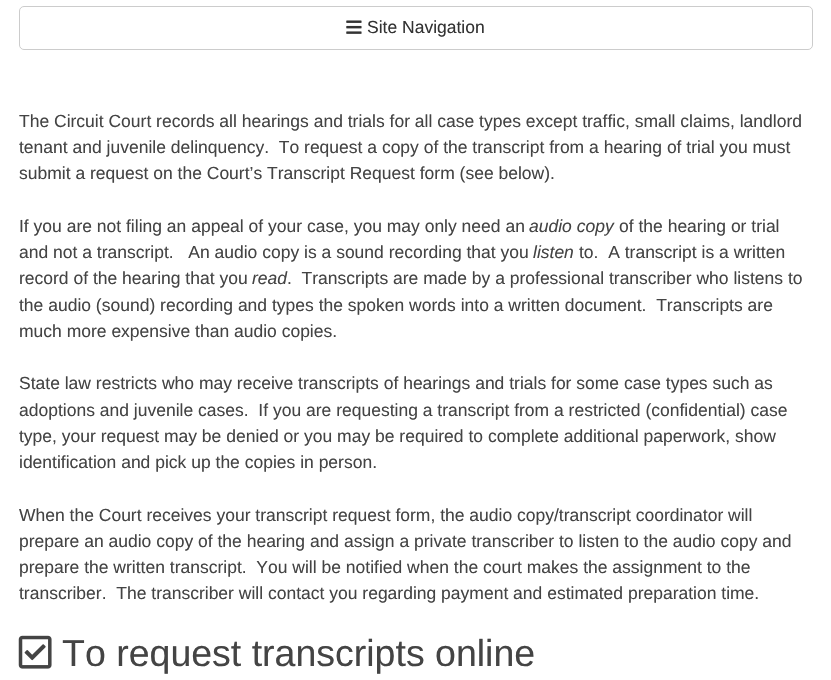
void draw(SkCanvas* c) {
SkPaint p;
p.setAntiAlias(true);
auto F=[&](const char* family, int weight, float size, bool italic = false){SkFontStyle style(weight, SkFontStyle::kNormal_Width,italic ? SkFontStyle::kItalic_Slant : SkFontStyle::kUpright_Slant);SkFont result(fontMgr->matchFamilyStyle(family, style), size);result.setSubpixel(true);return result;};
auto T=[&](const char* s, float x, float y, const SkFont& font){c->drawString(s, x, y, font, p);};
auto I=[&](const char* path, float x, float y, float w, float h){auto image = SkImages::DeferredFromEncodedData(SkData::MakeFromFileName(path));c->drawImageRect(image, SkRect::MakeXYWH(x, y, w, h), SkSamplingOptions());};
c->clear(0xffffffff);
p.setStroke(true);
p.setStrokeWidth(1);
p.setColor(0xffcccccc);
c->drawRoundRect(SkRect::MakeXYWH(19.5,6.5,793,43),4.5,4.5,p);
I("1.png",346,20,16,14);
auto f1 = F("Liberation Sans",400,17.5);
p.setStroke(false);
p.setColor(0xff333333);
T("Site Navigation",367,33,f1);
p.setColor(0xff444444);
T("The Circuit Court records all hearings and trials for all case types except traffic, small claims, landlord",19,127,f1);
T("tenant and juvenile delinquency.  To request a copy of the transcript from a hearing of trial you must",19,153,f1);
T("submit a request on the Court’s Transcript Request form (see below).",19,179,f1);
T("If you are not filing an appeal of your case, you may only need an",19,232,f1);
auto f2 = F("Liberation Sans",400,17.5,true);
T("audio copy",529,232,f2);
T("of the hearing or trial",619,232,f1);
T("and not a transcript.   An audio copy is a sound recording that you",19,258,f1);
T("listen",533,258,f2);
T("to.  A transcript is a written",579,258,f1);
T("record of the hearing that you",19,284,f1);
T("read",252,284,f2);
T(".  Transcripts are made by a professional transcriber who listens to",287,284,f1);
T("the audio (sound) recording and types the spoken words into a written document.  Transcripts are",19,311,f1);
T("much more expensive than audio copies.",19,337,f1);
T("State law restricts who may receive transcripts of hearings and trials for some case types such as",19,389,f1);
T("adoptions and juvenile cases.  If you are requesting a transcript from a restricted (confidential) case",19,416,f1);
T("type, your request may be denied or you may be required to complete additional paperwork, show",19,442,f1);
T("identification and pick up the copies in person.",19,468,f1);
T("When the Court receives your transcript request form, the audio copy/transcript coordinator will",19,521,f1);
T("prepare an audio copy of the hearing and assign a private transcriber to listen to the audio copy and",19,547,f1);
T("prepare the written transcript.  You will be notified when the court makes the assignment to the",19,573,f1);
T("transcriber.  The transcriber will contact you regarding payment and estimated preparation time.",19,599,f1);
I("2.png",18,635,34,34);
auto f3 = F("Liberation Sans",400,37.5);
T("To request transcripts online",62,666,f3);
}
